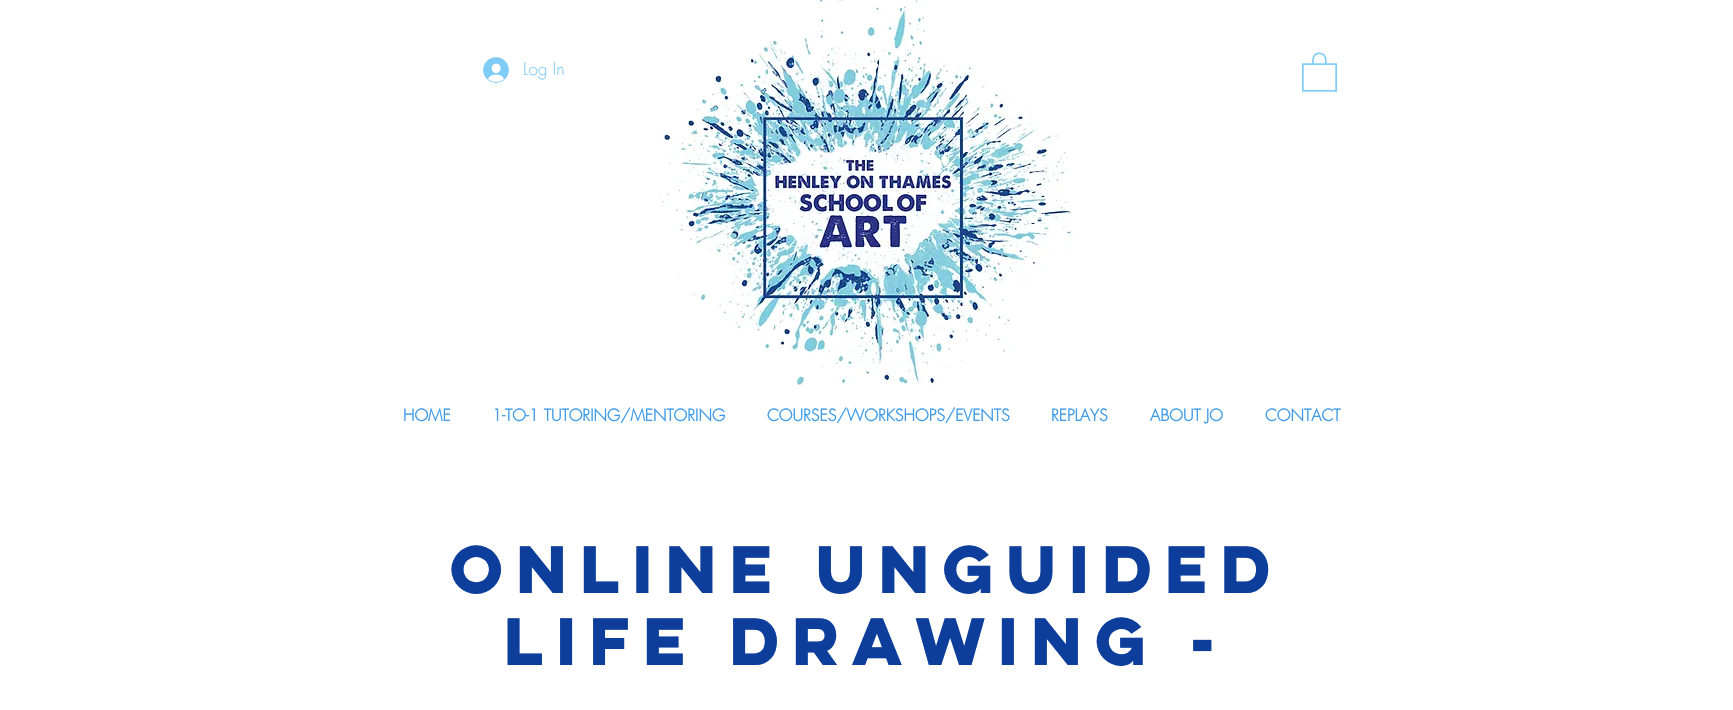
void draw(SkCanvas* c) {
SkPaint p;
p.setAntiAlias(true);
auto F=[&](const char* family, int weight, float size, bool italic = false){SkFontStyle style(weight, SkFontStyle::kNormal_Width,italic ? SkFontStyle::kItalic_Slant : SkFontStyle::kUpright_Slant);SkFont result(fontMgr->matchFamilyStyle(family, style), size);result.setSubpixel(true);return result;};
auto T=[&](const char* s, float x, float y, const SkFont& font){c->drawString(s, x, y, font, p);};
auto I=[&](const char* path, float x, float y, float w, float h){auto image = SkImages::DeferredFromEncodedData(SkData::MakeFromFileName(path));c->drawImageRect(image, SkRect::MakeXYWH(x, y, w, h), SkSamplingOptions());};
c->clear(0xffffffff);
I("1.png",483,57,26,26);
auto f1 = F("futura",300,17);
p.setColor(0xff7fccf7);
T("Log In",523,75,f1);
I("2.png",660,0,413,388);
I("3.png",1302,52,35,40);
auto f2 = F("futura",700,16);
p.setColor(0xff3d9be9);
T("HOME",403,421,f2);
T("1-TO-1 TUTORING/MENTORING",492,421,f2);
T("COURSES/WORKSHOPS/EVENTS",767,421,f2);
T("REPLAYS",1051,421,f2);
T("ABOUT JO",1150,421,f2);
T("CONTACT",1265,421,f2);
auto f3 = F("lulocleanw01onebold",700,60);
p.setColor(0xff0e3e9b);
T("Online Unguided",450,593,f3);
T("Life Drawing -",504,665,f3);
}
